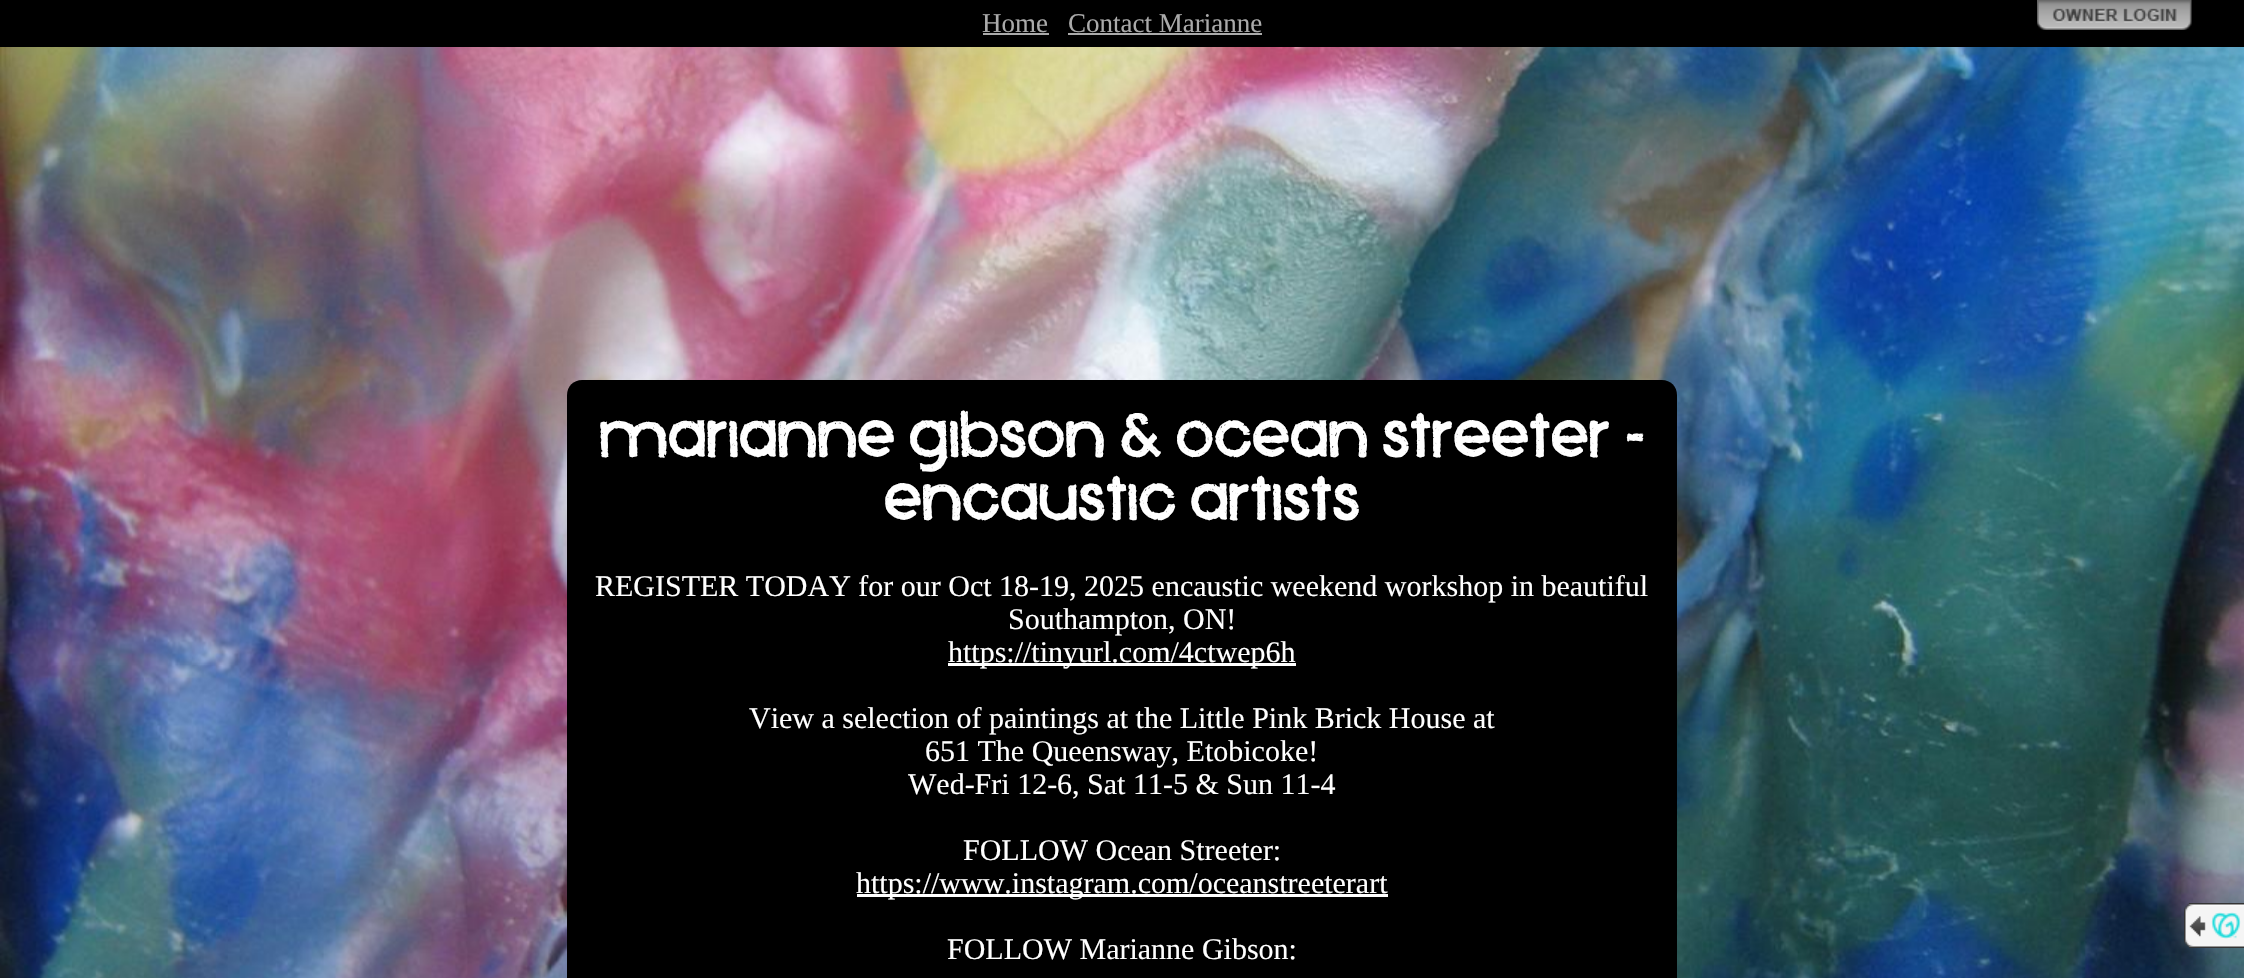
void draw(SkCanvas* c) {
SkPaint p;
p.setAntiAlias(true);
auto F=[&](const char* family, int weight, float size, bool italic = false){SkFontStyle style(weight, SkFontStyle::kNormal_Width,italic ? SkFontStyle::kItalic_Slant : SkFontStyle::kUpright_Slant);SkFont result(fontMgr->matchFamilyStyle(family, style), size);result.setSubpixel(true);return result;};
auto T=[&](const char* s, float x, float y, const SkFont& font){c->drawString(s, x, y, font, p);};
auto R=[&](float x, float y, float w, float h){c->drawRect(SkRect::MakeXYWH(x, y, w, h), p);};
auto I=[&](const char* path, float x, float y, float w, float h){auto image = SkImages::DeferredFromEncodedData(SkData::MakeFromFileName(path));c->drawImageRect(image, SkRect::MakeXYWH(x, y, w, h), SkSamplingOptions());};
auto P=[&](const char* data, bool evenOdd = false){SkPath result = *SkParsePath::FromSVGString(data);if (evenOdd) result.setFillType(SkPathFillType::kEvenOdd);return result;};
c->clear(0xffffffff);
p.setColor(0xff000000);
R(0,0,2244,47);
auto f1 = F("Liberation Serif",400,27);
p.setColor(0xffaaaaaa);
T("Home",982,32,f1);
R(983,33,66,2);
T("Contact Marianne",1068,32,f1);
R(1068,33,194,2);
I("1.png",2037,0,155,30);
I("5.png",0,47,2244,931);
p.setColor(0xff000000);
c->drawPath(P("M582 380h1080c8.5 0 15 6.5 15 15v583h-1110v-583c0-8.5 6.5-15 15-15z"),p);
auto f2 = F("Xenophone",400,63);
p.setColor(0xffffffff);
T("marianne gibson & ocean streeter -",599,462,f2);
T("encaustic artists",884,525,f2);
auto f3 = F("Liberation Serif",400,30);
T("REGISTER TODAY for our Oct 18-19, 2025 encaustic weekend workshop in beautiful",595,596,f3);
T("Southampton, ON!",1008,629,f3);
R(948,663,348,3);
T("https://tinyurl.com/4ctwep6h",948,662,f3);
T("View a selection of paintings at the Little Pink Brick House at",749,728,f3);
T("651 The Queensway, Etobicoke!",925,761,f3);
T("Wed-Fri 12-6, Sat 11-5 & Sun 11-4",908,794,f3);
T("FOLLOW Ocean Streeter:",963,860,f3);
R(857,894,531,3);
T("https://www.instagram.com/oceanstreeterart",856,893,f3);
T("FOLLOW Marianne Gibson:",947,959,f3);
I("2.png",2189,903,55,45);
I("3.png",2184,903,22,44);
I("4.png",2211,912,30,27);
}
